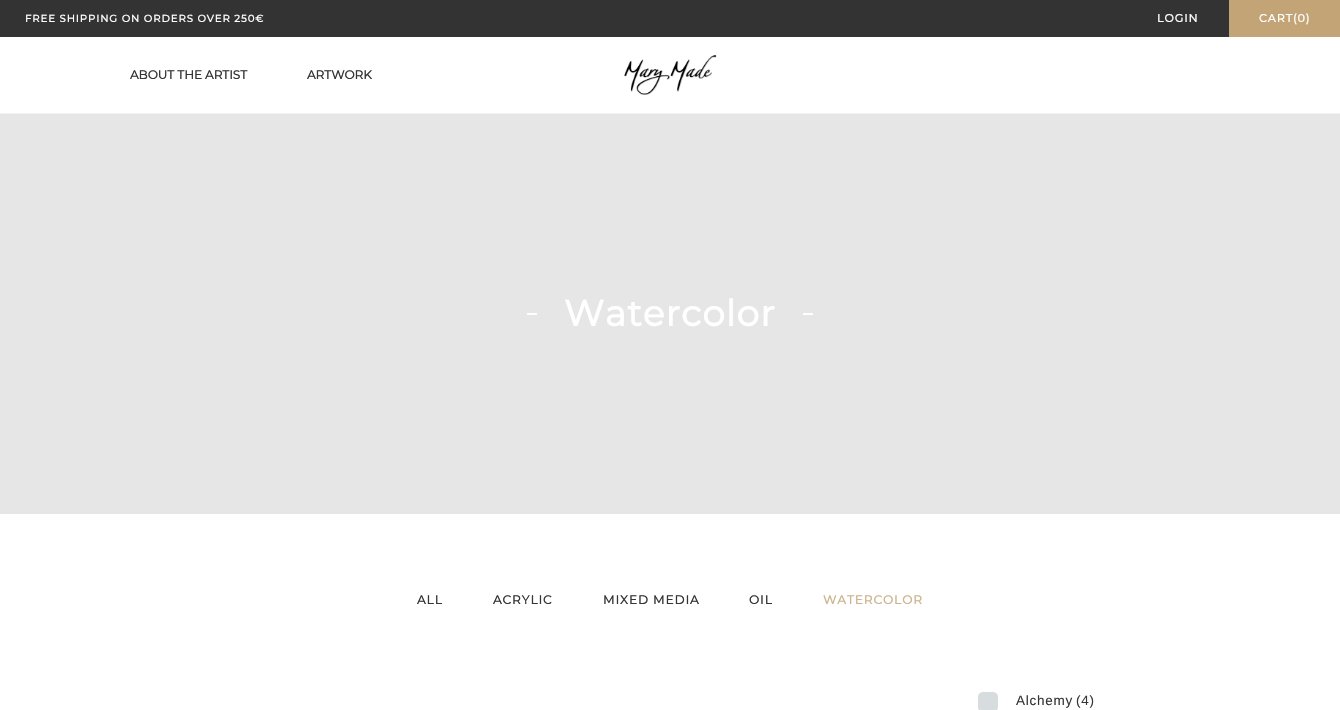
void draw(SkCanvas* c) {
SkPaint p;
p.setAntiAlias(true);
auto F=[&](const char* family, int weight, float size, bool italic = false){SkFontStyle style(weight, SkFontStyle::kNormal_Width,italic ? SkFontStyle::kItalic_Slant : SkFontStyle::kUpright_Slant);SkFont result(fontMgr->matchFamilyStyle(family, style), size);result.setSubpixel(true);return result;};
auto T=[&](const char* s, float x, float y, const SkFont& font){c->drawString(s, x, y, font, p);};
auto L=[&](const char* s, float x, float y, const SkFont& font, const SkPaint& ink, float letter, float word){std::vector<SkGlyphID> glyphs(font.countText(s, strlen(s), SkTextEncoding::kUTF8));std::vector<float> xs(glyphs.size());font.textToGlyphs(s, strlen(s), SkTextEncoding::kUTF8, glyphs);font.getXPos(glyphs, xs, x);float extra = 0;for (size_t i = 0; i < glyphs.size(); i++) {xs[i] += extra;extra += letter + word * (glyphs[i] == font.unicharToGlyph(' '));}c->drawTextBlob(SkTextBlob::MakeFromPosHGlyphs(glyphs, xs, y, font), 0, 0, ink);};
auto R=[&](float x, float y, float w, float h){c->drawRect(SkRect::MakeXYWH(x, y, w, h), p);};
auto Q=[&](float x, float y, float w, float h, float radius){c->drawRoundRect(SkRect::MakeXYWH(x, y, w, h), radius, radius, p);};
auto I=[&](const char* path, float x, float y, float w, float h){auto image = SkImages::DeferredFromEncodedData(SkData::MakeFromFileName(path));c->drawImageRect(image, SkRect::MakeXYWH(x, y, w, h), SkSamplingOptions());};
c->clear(0xffffffff);
p.setColor(0xff333333);
R(0,0,1229,37);
auto f1 = F("Montserrat",700,10);
p.setColor(0xffffffff);
L("FREE SHIPPING ON ORDERS OVER 250€",25,22,f1,p,1,0);
auto f2 = F("Montserrat",700,11);
L("LOGIN",1157,22,f2,p,1,0);
p.setColor(0xffc2a476);
R(1229,0,111,37);
p.setColor(0xffffffff);
L("CART(0)",1259,22,f2,p,1,0);
p.setColor(0xfff2f2f2);
R(0,113,1340,1);
auto f3 = F("Montserrat",700,12);
p.setColor(0xff353535);
T("ABOUT THE ARTIST",130,79,f3);
T("ARTWORK",307,79,f3);
I("1.png",624,55,93,40);
p.setColor(0xffe6e6e6);
R(0,114,1340,400);
p.setColor(0xffffffff);
R(527,313,10,2);
auto f4 = F("Montserrat",700,36);
L("Watercolor",564,326,f4,p,1,0);
R(803,313,10,2);
p.setColor(0xff353535);
L("ALL",417,604,f3,p,1,0);
L("ACRYLIC",493,604,f3,p,1,0);
L("MIXED MEDIA",603,604,f3,p,1,0);
L("OIL",749,604,f3,p,1,0);
p.setColor(0xffccb48e);
L("WATERCOLOR",823,604,f3,p,1,0);
I("2.png",978,692,20,18);
p.setColor(0xffd7dcde);
Q(978,696,13,13,2);
auto f5 = F("Liberation Sans",400,13.5);
p.setColor(0xff353535);
L("Alchemy",1016,705,f5,p,.75,0);
L("(4)",1076,705,f5,p,.75,0);
}
